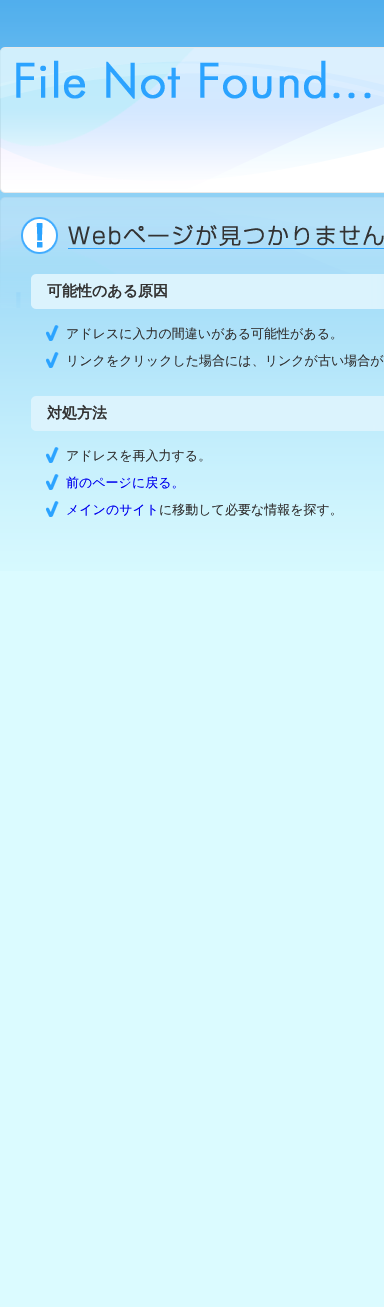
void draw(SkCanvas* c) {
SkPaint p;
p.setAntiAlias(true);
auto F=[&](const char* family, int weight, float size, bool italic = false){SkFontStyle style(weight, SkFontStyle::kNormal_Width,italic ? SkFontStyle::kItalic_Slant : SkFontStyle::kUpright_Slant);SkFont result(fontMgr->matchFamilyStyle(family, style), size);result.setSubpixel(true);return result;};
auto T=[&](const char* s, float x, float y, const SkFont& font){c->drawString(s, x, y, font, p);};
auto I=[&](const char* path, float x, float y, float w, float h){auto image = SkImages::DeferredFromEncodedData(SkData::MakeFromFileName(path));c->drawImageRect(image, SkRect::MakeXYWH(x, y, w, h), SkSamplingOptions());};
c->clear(0xffdbfbff);
I("1.png",0,0,384,571);
I("2.png",0,47,384,261);
I("3.png",21,217,363,37);
I("4.png",31,274,353,35);
auto f1 = F("WenQuanYi Zen Hei",700,15);
p.setColor(0xff333333);
T("可能性のある原因",47,296,f1);
I("5.png",46,325,13,16);
auto f2 = F("WenQuanYi Zen Hei",500,13);
T("アドレスに入力の間違いがある可能性がある。",66,338,f2);
I("6.png",46,352,13,16);
T("リンクをクリックした場合には、リンクが古い場合が",66,365,f2);
I("7.png",31,396,353,35);
T("対処方法",47,418,f1);
I("8.png",46,447,13,16);
T("アドレスを再入力する。",66,460,f2);
I("9.png",46,474,13,16);
p.setColor(0xff0000ee);
T("前のページに戻る。",66,487,f2);
I("10.png",46,501,13,16);
T("メインのサイト",66,514,f2);
p.setColor(0xff333333);
T("に移動して必要な情報を探す。",159,514,f2);
}
